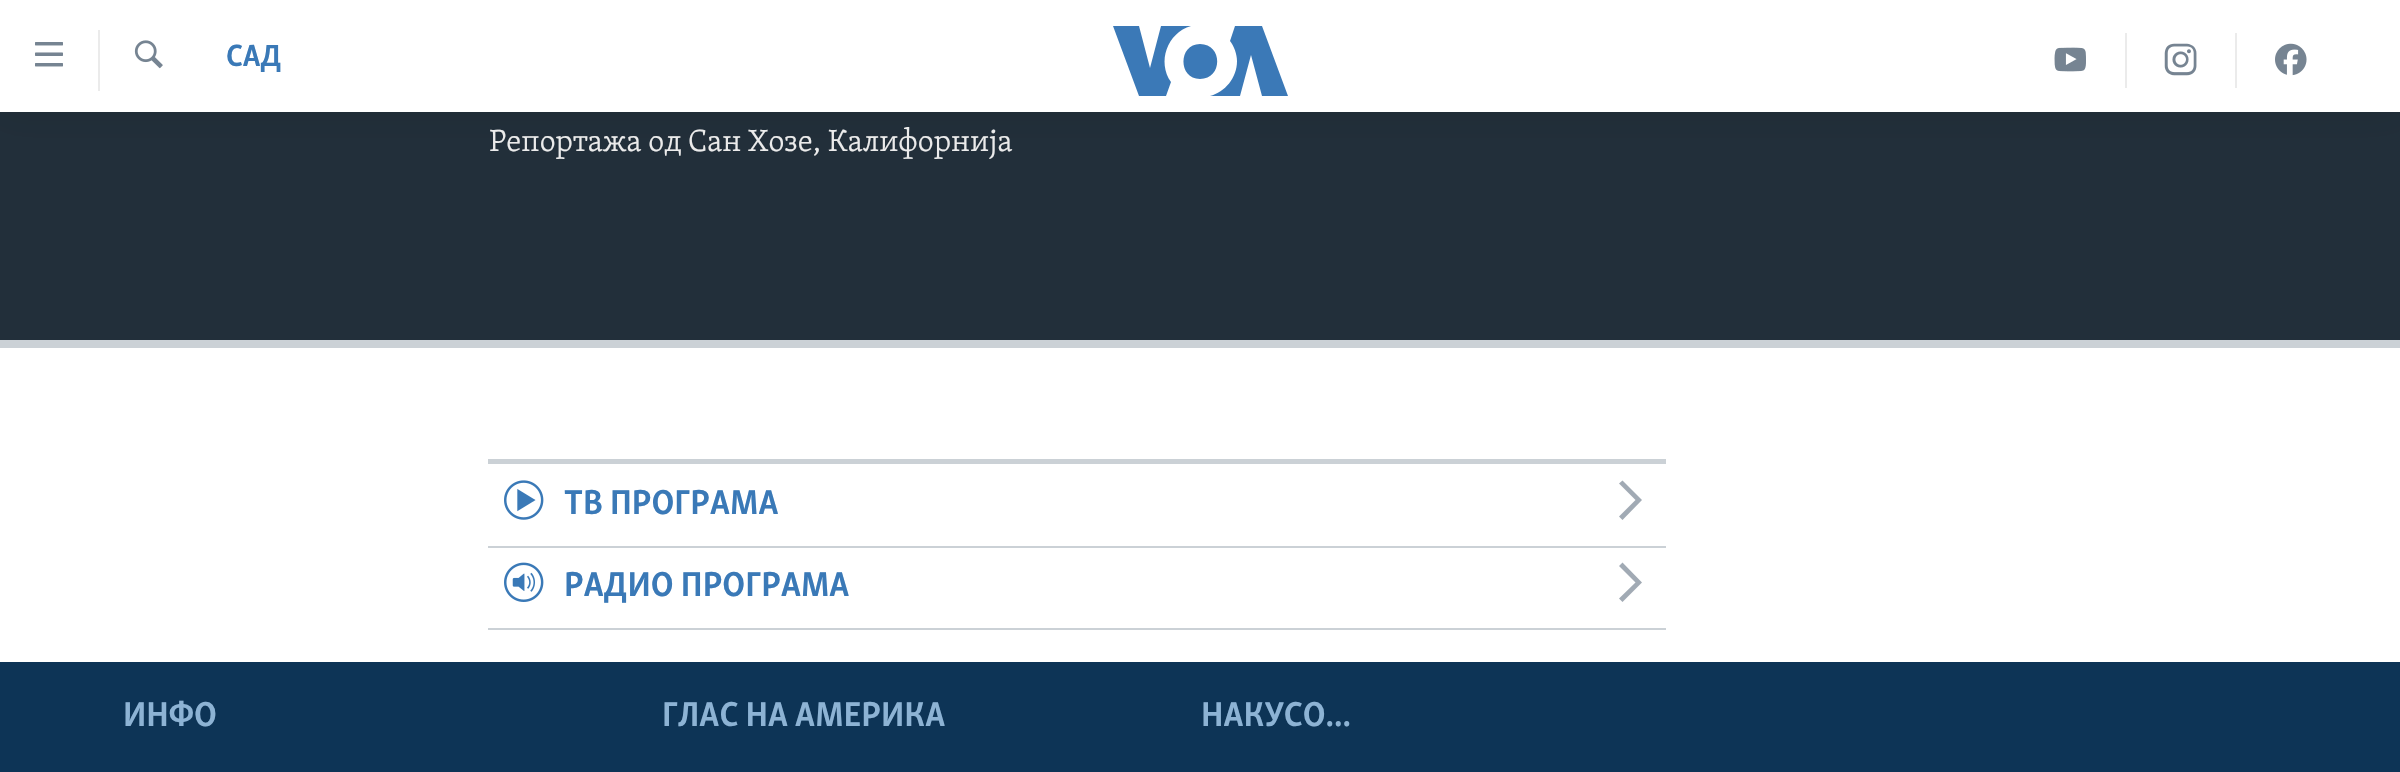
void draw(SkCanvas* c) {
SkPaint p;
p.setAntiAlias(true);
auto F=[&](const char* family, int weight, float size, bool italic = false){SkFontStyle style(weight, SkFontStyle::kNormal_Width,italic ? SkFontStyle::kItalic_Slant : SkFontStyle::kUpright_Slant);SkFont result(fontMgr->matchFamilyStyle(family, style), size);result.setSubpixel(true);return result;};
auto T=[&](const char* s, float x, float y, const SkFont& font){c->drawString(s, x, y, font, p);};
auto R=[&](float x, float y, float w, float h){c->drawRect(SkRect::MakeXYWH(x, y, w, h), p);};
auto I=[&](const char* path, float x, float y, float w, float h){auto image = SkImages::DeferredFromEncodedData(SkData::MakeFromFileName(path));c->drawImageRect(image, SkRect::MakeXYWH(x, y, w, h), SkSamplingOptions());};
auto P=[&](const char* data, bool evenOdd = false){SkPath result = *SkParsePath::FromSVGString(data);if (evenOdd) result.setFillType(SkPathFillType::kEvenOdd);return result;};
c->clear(0xffffffff);
p.setColor(0xff222f3a);
R(0,112,2400,228);
p.setColor(0x1a000000);
p.setMaskFilter(SkMaskFilter::MakeBlur(kNormal_SkBlurStyle, 17.5));
c->drawRect(SkRect::MakeXYWH(0,0,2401,112),p);
p.setMaskFilter(nullptr);
p.setColor(0xffffffff);
R(0,0,2400,112);
I("1.png",35,42,28,25);
p.setColor(0xffebebeb);
R(98,30,2,61);
I("2.png",134,40,29,29);
auto f1 = F("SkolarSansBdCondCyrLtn",700,31.5);
p.setColor(0xff3a79b7);
T("САД",226,66,f1);
p.setColor(0xff3b79b7);
c->drawPath(P("M1171 82l-5 14h-27l-26-70h26l11 42l11-42h30c-24 7-34 36-20 56zm29-38c-22 0-22 35 0 35c23 0 23-35 0-35zm37 17c0 17-12 31-27 35h30l11-41l11 41h26l-26-70h-27l-5 15c4 5 7 13 7 20z"),p);
p.setColor(0xffebebeb);
R(2125,33,2,55);
I("3.png",2054,47,32,25);
R(2235,33,2,55);
I("4.png",2164,43,33,33);
I("5.png",2275,43,32,33);
p.setColor(0xffcbd1d6);
R(0,340,2400,8);
auto f2 = F("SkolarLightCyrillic",300,31.5);
p.setColor(0xffebebeb);
T("Репортажа од Сан Хозе, Калифорнија",489,151,f2);
p.setColor(0xffcbd1d6);
R(488,459,1178,5);
R(488,546,1178,2);
I("6.png",504,480,40,40);
auto f3 = F("SkolarSansBdCondCyrLtn",700,35.5);
p.setColor(0xff3a79b7);
T("ТВ ПРОГРАМА",564,514,f3);
p.setColor(0xffa1aab4);
c->drawPath(P("M1622.5 520l19.5-20l-19.5-19.5l-3.5 3l16.5 16.5l-16.5 16.5z"),p);
p.setColor(0xffcbd1d6);
R(488,628,1178,2);
I("7.png",504,562,40,40);
p.setColor(0xff3a79b7);
T("РАДИО ПРОГРАМА",564,596,f3);
p.setColor(0xffa1aab4);
c->drawPath(P("M1622.5 602l19.5-19.5l-19.5-20l-3.5 3.5l16.5 16.5l-16.5 16z"),p);
p.setColor(0xff0d3456);
R(0,662,2400,110);
p.setColor(0xff8db3d4);
T("ИНФО",123,726,f3);
T("ГЛАС НА АМЕРИКА",662,726,f3);
T("НАКУСО...",1201,726,f3);
}
